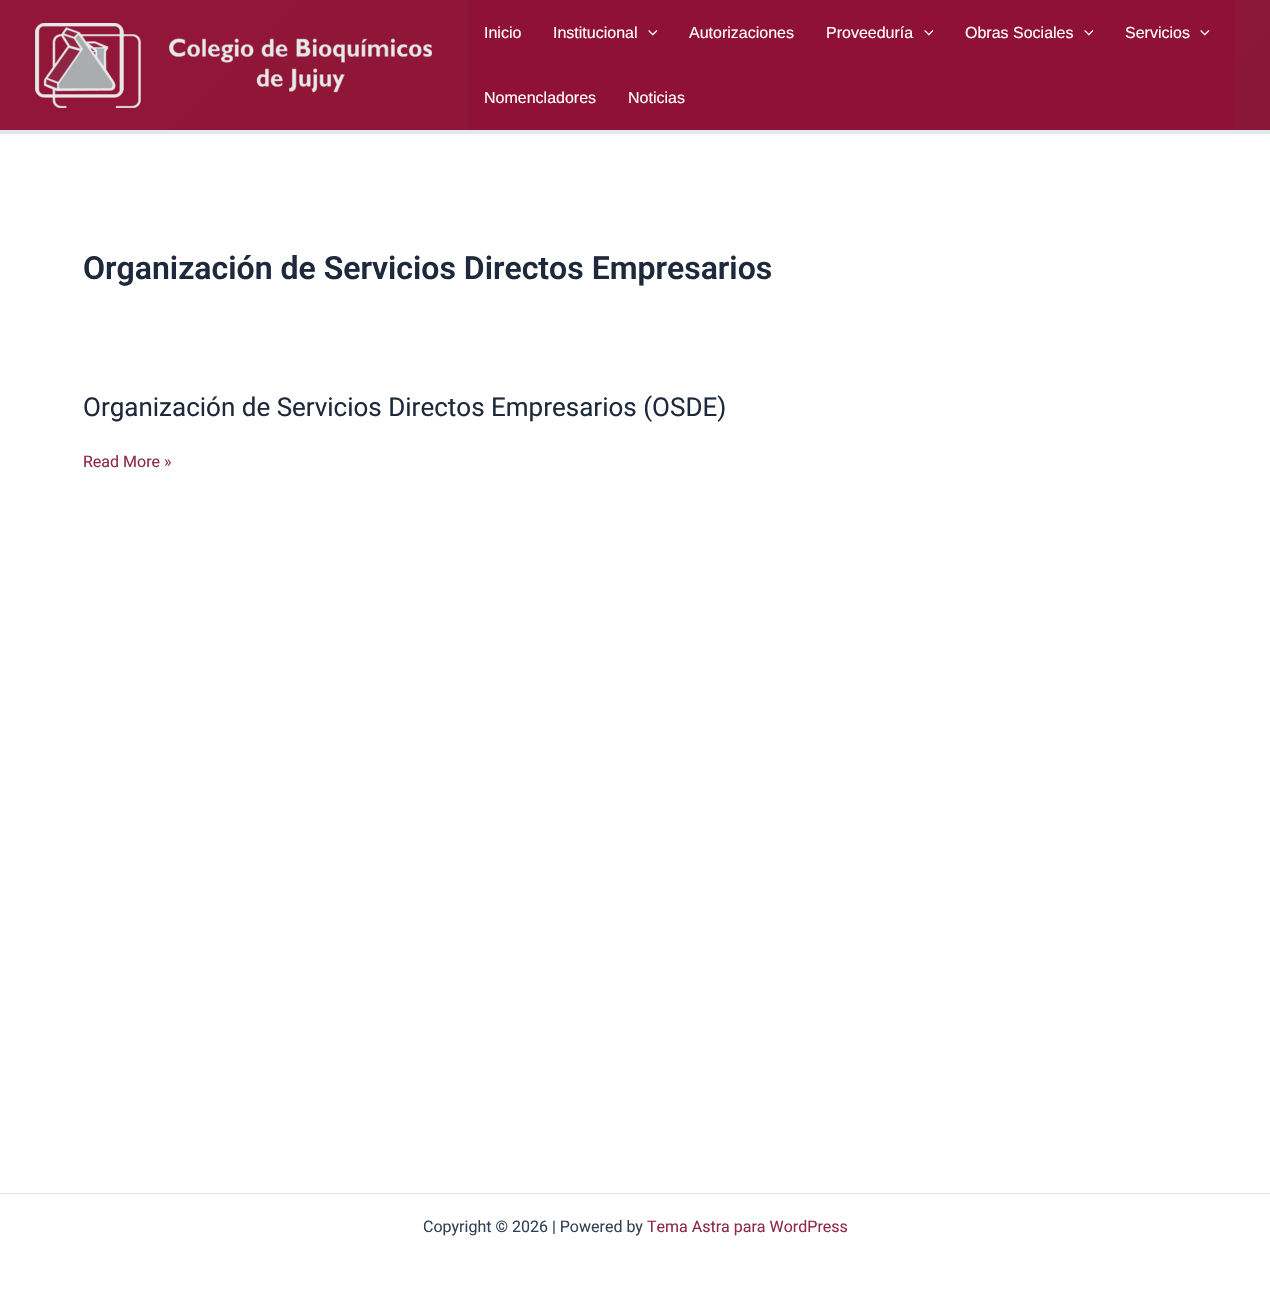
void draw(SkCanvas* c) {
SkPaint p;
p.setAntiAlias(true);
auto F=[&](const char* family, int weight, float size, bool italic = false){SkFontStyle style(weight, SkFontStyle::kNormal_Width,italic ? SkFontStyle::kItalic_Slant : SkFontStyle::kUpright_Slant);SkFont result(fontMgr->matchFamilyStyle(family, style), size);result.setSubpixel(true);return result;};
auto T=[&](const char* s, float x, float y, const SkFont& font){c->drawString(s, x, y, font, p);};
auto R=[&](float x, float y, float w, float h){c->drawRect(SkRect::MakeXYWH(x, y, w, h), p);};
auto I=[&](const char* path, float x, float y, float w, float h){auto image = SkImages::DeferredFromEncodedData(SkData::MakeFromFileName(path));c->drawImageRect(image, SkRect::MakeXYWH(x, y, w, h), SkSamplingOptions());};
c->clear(0xffffffff);
{
const SkColor colors[] = {0xff921637,0xff8b1738};
const float stops[] = {0,1};
const SkPoint ends[] = {{285,-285}, {985,415}};
p.setShader(SkGradientShader::MakeLinear(ends, colors, stops, 2, SkTileMode::kClamp));
p.setAlpha(255);
}
R(0,0,1270,130);
p.setShader(nullptr);
p.setColor(0xffe2e8f0);
R(0,130,1270,4);
I("1.png",35,23,397,85);
p.setColor(0xff8f1137);
R(468,0,767,130);
auto f1 = F("Liberation Sans",400,16);
p.setColor(0xffffffff);
T("Inicio",484,38,f1);
T("Institucional",553,38,f1);
I("2.png",648,30,9,6);
T("Autorizaciones",689,38,f1);
T("Proveeduría",826,38,f1);
I("2.png",924,30,9,6);
T("Obras Sociales",965,38,f1);
I("2.png",1084,30,9,6);
T("Servicios",1125,38,f1);
I("3.png",1200,30,10,6);
T("Nomencladores",484,103,f1);
T("Noticias",628,103,f1);
auto f2 = F("Roboto",600,32);
p.setColor(0xff1e293b);
T("Organización de Servicios Directos Empresarios",83,279,f2);
auto f3 = F("Roboto",400,26);
T("Organización de Servicios Directos Empresarios (OSDE)",83,416,f3);
auto f4 = F("Roboto",400,16);
p.setColor(0xff8e2947);
T("Read More »",83,467,f4);
p.setColor(0xffe2e8f0);
R(0,1193,1270,1);
p.setColor(0xff334155);
T("Copyright © 2026 | Powered by",423,1232,f4);
p.setColor(0xff8e2947);
T("Tema Astra para WordPress",647,1232,f4);
}
